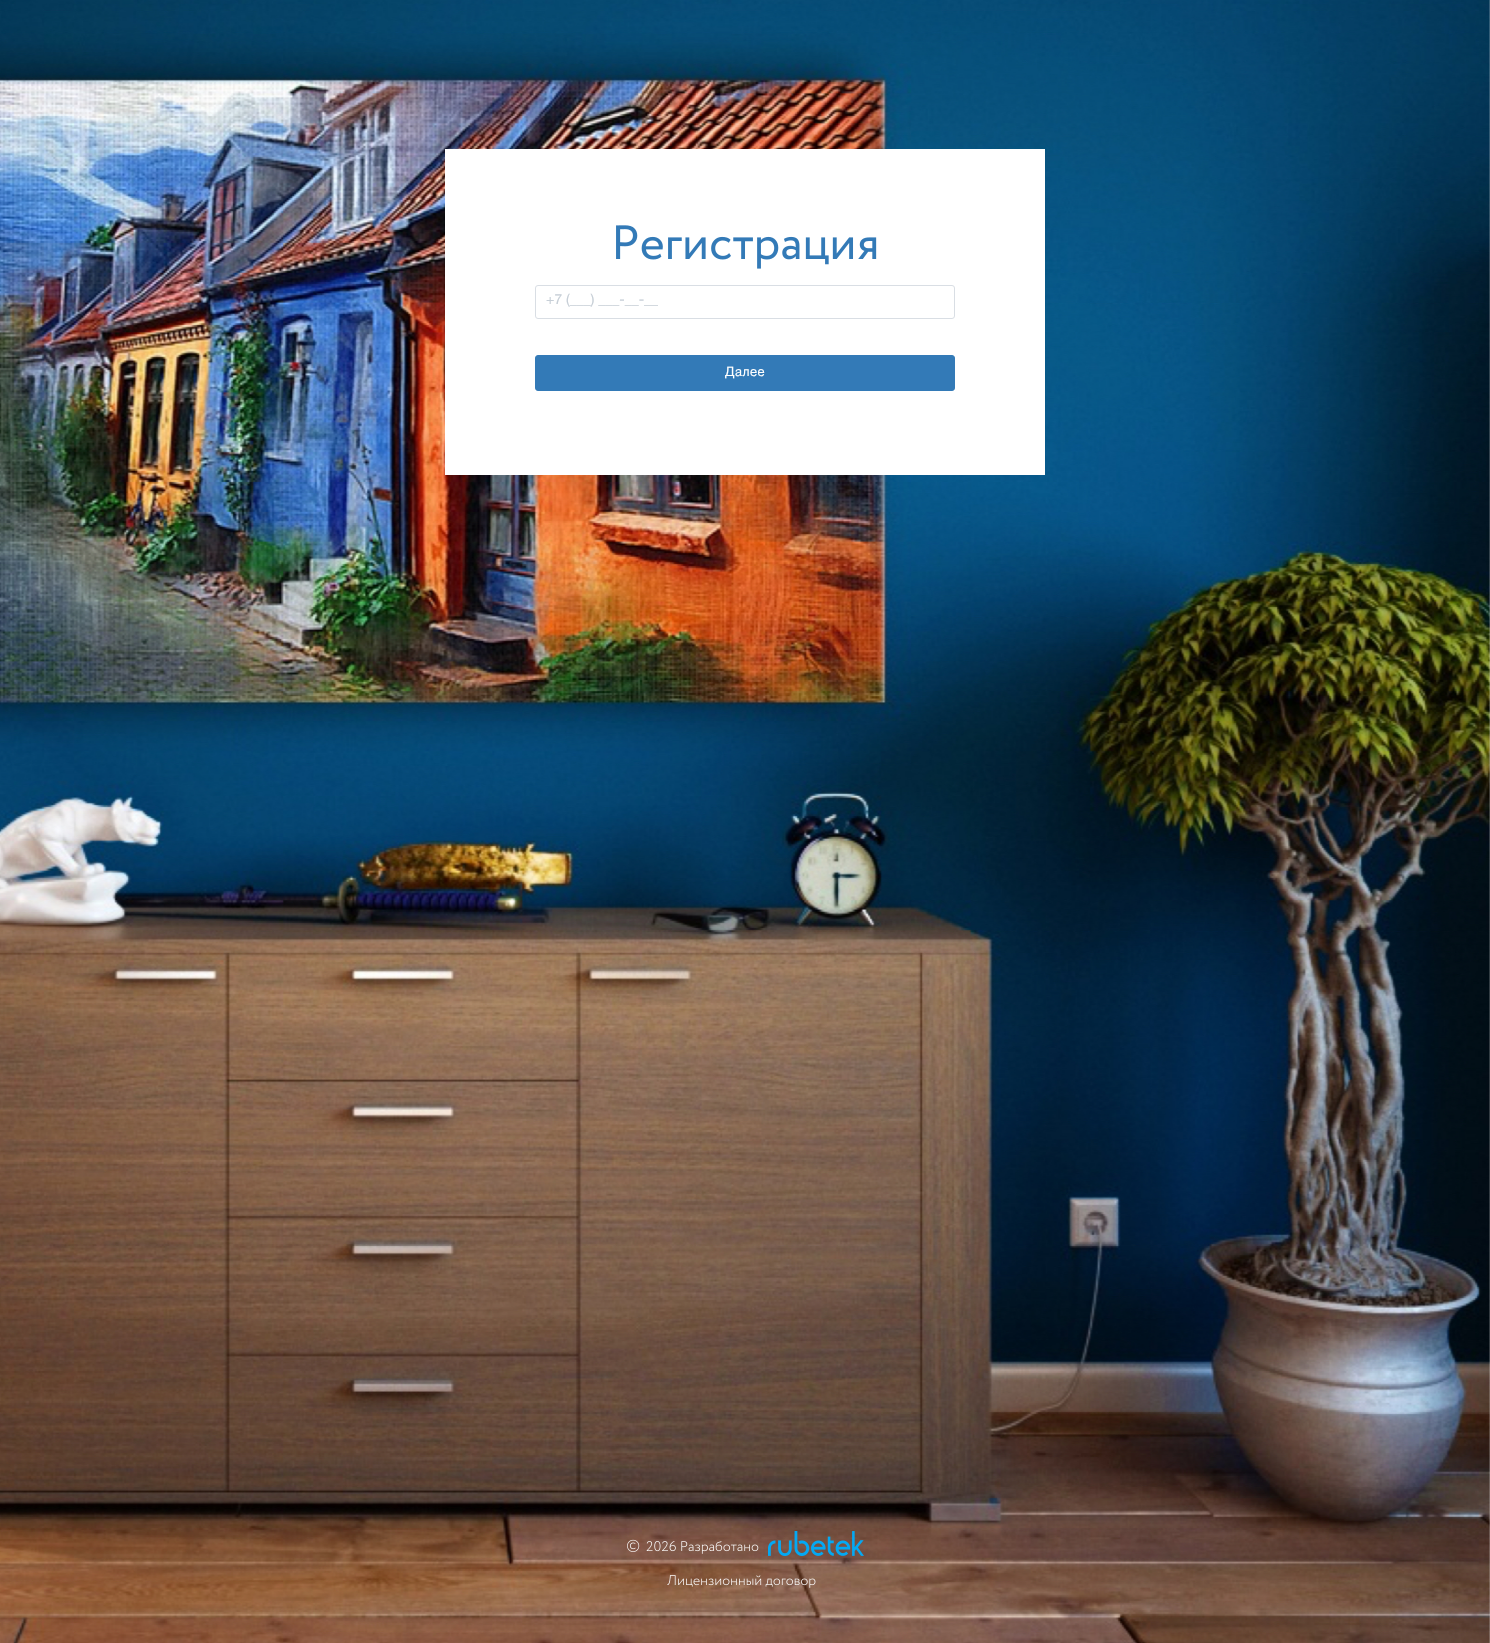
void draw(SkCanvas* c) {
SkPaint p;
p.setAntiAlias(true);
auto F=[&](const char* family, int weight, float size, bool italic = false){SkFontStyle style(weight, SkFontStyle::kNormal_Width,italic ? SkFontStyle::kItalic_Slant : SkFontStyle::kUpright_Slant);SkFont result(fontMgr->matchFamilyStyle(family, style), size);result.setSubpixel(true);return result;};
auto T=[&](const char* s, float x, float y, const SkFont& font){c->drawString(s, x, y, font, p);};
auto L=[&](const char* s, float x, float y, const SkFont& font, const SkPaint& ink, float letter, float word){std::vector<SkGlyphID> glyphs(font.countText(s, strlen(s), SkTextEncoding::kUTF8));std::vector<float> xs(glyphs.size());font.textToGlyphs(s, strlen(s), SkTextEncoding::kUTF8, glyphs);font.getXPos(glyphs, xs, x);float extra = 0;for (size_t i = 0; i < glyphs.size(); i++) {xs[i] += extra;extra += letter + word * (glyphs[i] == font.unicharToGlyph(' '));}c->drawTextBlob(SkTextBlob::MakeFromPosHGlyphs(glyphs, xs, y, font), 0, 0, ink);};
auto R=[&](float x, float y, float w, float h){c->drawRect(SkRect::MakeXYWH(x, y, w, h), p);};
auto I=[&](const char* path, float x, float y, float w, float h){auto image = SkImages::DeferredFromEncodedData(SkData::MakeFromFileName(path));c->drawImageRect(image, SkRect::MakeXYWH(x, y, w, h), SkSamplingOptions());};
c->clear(0xffffffff);
I("1.png",0,0,1490,1643);
p.setColor(0xffffffff);
R(445,149,600,326);
I("2.png",616,225,261,44);
p.setStroke(true);
p.setStrokeWidth(1);
p.setColor(0xffd9dee4);
c->drawRoundRect(SkRect::MakeXYWH(535.5,285.5,419,33),2.5,2.5,p);
auto f1 = F("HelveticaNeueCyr",400,14);
p.setStroke(false);
p.setColor(0xffc7cfd7);
T("+7 (___) ___-__-__",546,304,f1);
p.setColor(0xff337ab7);
c->drawRoundRect(SkRect::MakeXYWH(535.5,355.5,419,35),2.5,2.5,p);
p.setStroke(true);
c->drawRoundRect(SkRect::MakeXYWH(535.5,355.5,419,35),2.5,2.5,p);
auto f2 = F("HelveticaNeueCyr",400,13);
p.setStroke(false);
p.setColor(0xffffffff);
L("Далее",725,376,f2,p,.5,0);
I("3.png",627,1539,13,13);
I("4.png",646,1541,113,13);
I("5.png",768,1531,96,25);
I("6.png",667,1575,149,13);
}
